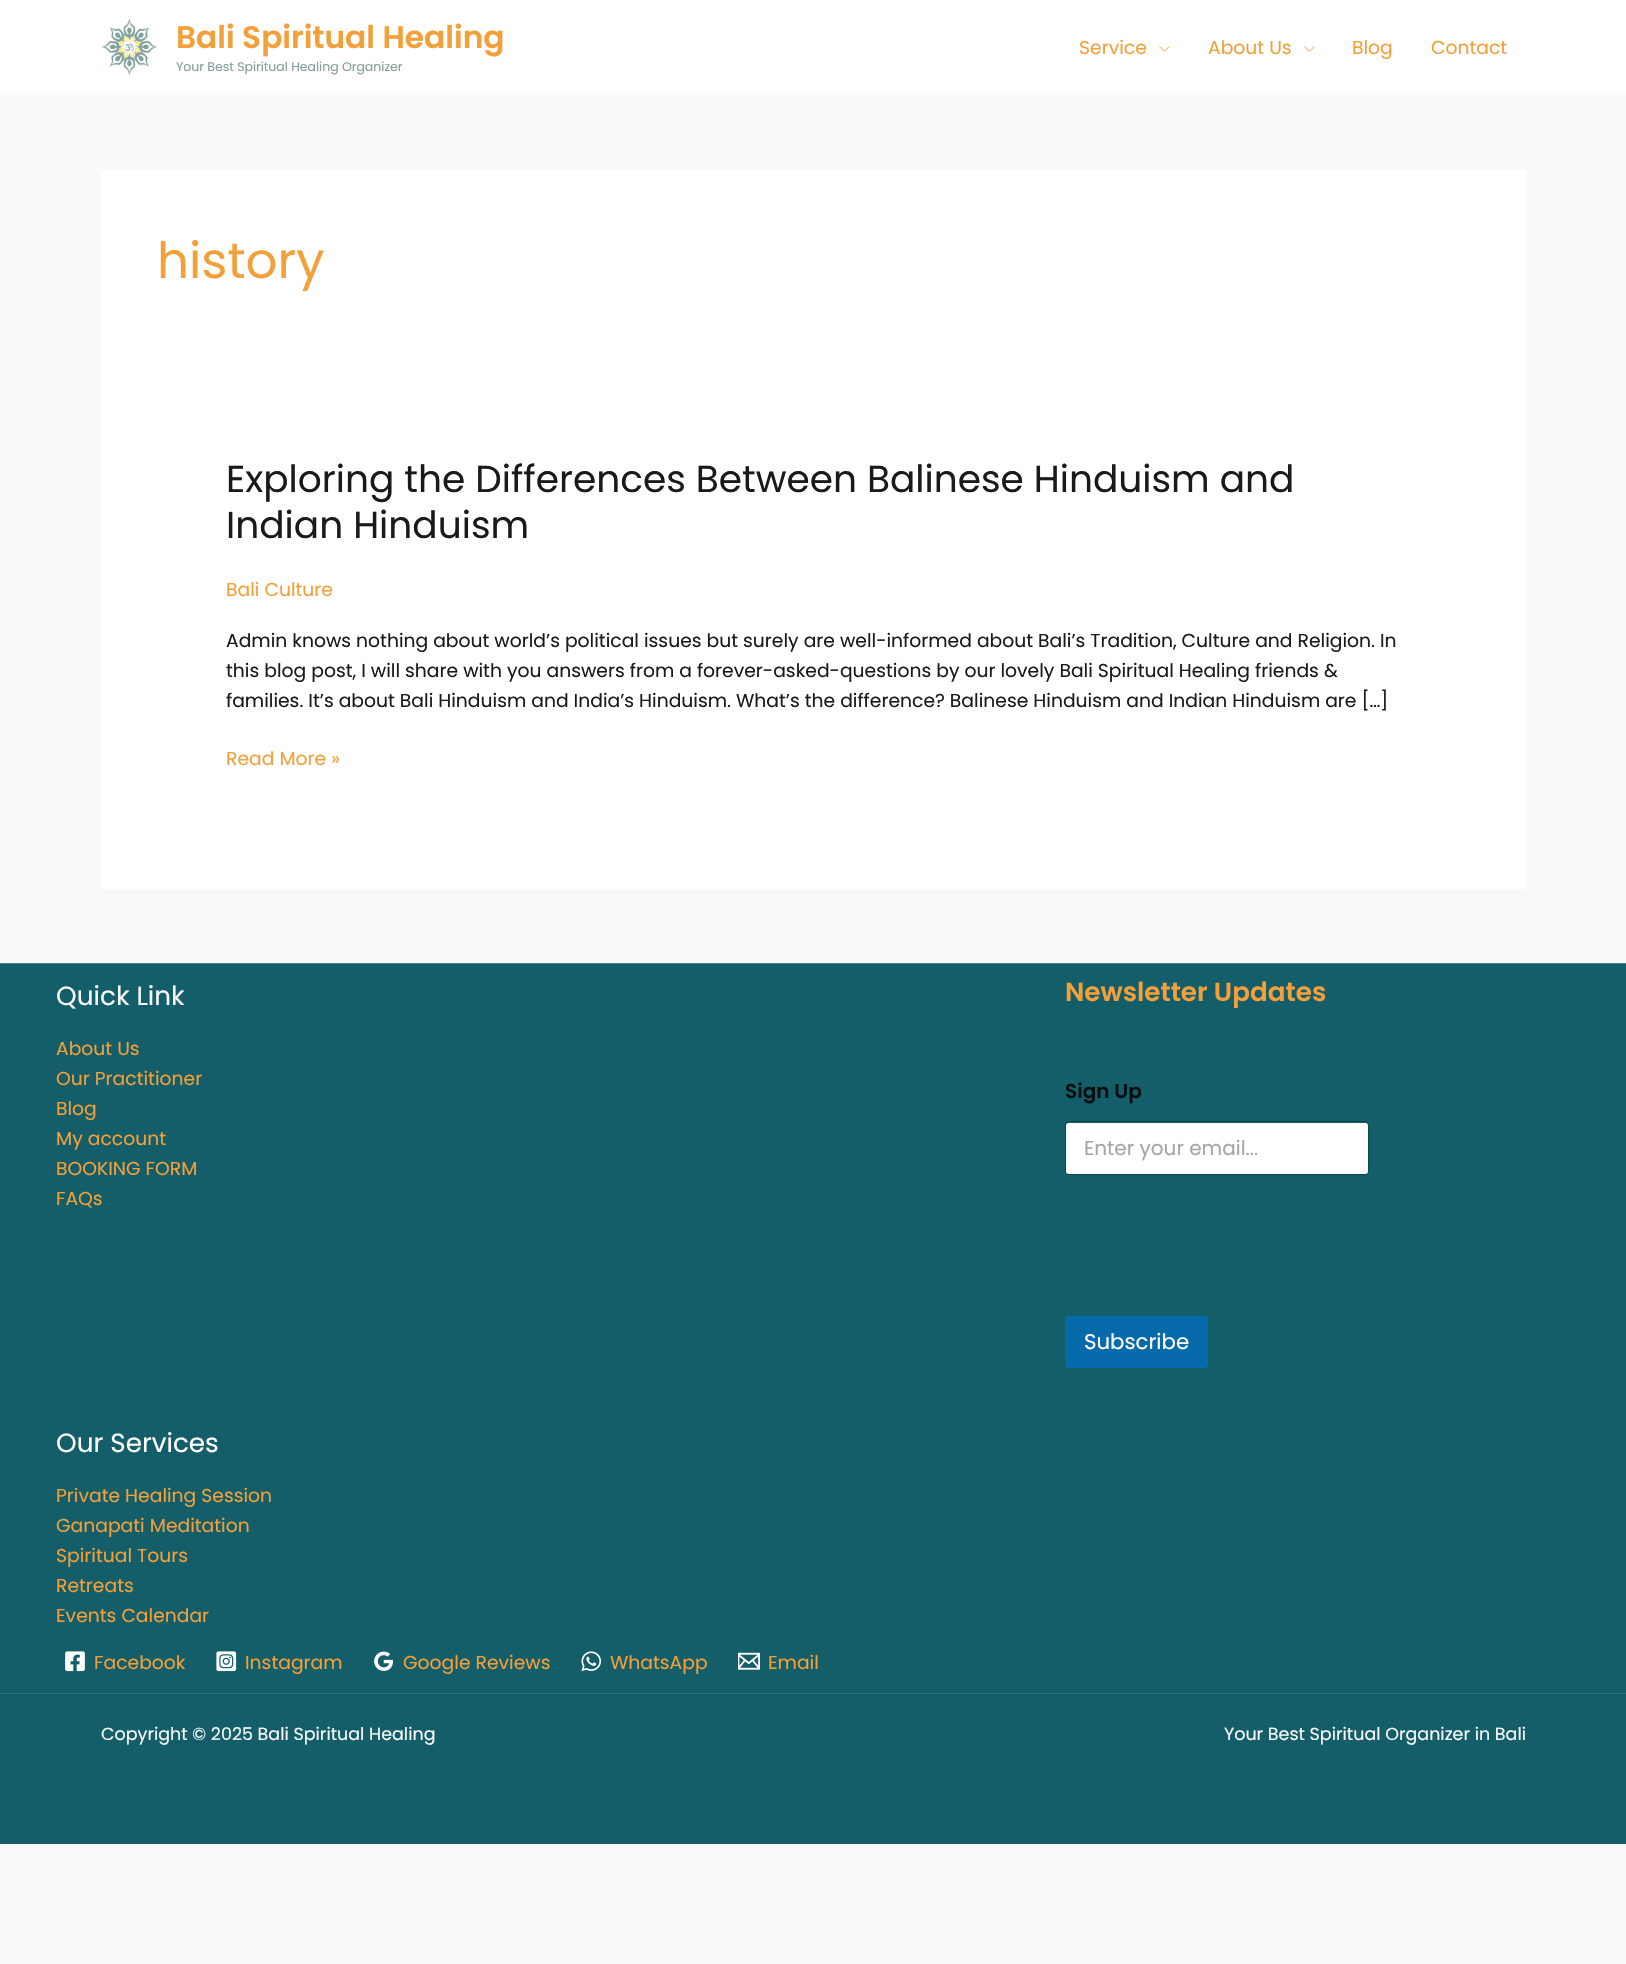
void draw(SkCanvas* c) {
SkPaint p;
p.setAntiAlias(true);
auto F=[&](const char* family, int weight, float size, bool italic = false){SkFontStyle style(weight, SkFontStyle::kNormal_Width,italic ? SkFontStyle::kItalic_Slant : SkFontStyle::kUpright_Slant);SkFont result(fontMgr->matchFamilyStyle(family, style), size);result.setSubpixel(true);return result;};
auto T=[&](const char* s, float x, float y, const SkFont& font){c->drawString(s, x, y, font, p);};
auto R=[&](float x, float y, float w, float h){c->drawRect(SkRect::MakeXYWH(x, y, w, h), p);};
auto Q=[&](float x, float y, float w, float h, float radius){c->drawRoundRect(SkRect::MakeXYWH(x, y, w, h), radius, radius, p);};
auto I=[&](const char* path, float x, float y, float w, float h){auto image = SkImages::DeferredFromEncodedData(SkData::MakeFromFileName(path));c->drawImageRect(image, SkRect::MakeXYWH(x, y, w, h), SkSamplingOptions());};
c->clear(0xfff9f9f9);
p.setColor(0xffffffff);
R(0,0,1626,95);
I("1.png",101,18,57,57);
auto f1 = F("Poppins",600,31.25);
p.setColor(0xfff4a03a);
T("Bali Spiritual Healing",176,48,f1);
auto f2 = F("Poppins",400,12.5);
p.setColor(0xff81a09b);
T("Your Best Spiritual Healing Organizer",176,71,f2);
auto f3 = F("Poppins",400,18.75);
p.setColor(0xfff4a03a);
T("Service",1079,54,f3);
I("2.png",1159,46,11,6);
T("About Us",1208,54,f3);
I("2.png",1304,46,11,6);
T("Blog",1352,54,f3);
T("Contact",1431,54,f3);
p.setColor(0xffffffff);
R(101,170,1425,719);
auto f4 = F("Poppins",400,50);
p.setColor(0xfff4a03a);
T("history",157,278,f4);
auto f5 = F("Poppins",400,37.5);
p.setColor(0xff1a1a1a);
T("Exploring the Differences Between Balinese Hinduism and",226,492,f5);
T("Indian Hinduism",226,538,f5);
p.setColor(0xfff4a03a);
T("Bali Culture",226,596,f3);
p.setColor(0xff1a1a1a);
T("Admin knows nothing about world’s political issues but surely are well-informed about Bali’s Tradition, Culture and Religion. In",226,647,f3);
T("this blog post, I will share with you answers from a forever-asked-questions by our lovely Bali Spiritual Healing friends &",226,677,f3);
T("families. It’s about Bali Hinduism and India’s Hinduism. What’s the difference? Balinese Hinduism and Indian Hinduism are […]",226,707,f3);
p.setColor(0xfff4a03a);
T("Read More »",226,765,f3);
p.setColor(0xff2f9285);
R(0,963,1626,1);
p.setColor(0xff135e69);
R(0,964,1626,729);
auto f6 = F("Poppins",400,26.25);
p.setColor(0xfff9f9f9);
T("Quick Link",56,1005,f6);
p.setColor(0xfff4a03a);
T("About Us",56,1055,f3);
T("Our Practitioner",56,1085,f3);
T("Blog",56,1115,f3);
T("My account",56,1145,f3);
T("BOOKING FORM",56,1175,f3);
T("FAQs",56,1205,f3);
auto f7 = F("Poppins",600,26.25);
T("Newsletter Updates",1065,1001,f7);
auto f8 = F("Poppins",600,20);
p.setColor(0xff030e10);
T("Sign Up",1065,1098,f8);
p.setColor(0xffffffff);
Q(1066,1123,302,51,2.5);
p.setStroke(true);
p.setStrokeWidth(1);
p.setColor(0x40000000);
c->drawRoundRect(SkRect::MakeXYWH(1065.5,1121.5,303,53),3.5,3.5,p);
auto f9 = F("Poppins",400,20);
p.setStroke(false);
p.setColor(0xffa6a6a6);
T("Enter your email...",1084,1155,f9);
p.setColor(0xff066aab);
Q(1065,1316,143,52,4);
auto f10 = F("Poppins",400,21.25);
p.setColor(0xffffffff);
T("Subscribe",1084,1349,f10);
T("Our Services",56,1452,f6);
p.setColor(0xfff4a03a);
T("Private Healing Session",56,1502,f3);
T("Ganapati Meditation",56,1532,f3);
T("Spiritual Tours",56,1562,f3);
T("Retreats",56,1592,f3);
T("Events Calendar",56,1622,f3);
I("3.png",65,1651,20,21);
T("Facebook",94,1669,f3);
I("4.png",216,1651,21,21);
T("Instagram",245,1669,f3);
I("5.png",374,1651,19,20);
T("Google Reviews",403,1669,f3);
I("6.png",581,1651,21,20);
T("WhatsApp",610,1669,f3);
I("7.png",738,1652,22,18);
T("Email",768,1669,f3);
p.setColor(0xff135e69);
R(0,1694,1626,150);
p.setColor(0xff2f717b);
R(0,1693,1626,1);
auto f11 = F("Poppins",400,17.5);
p.setColor(0xfff9f9f9);
T("Copyright © 2025 Bali Spiritual Healing",101,1740,f11);
T("Your Best Spiritual Organizer in Bali",1224,1740,f11);
}
